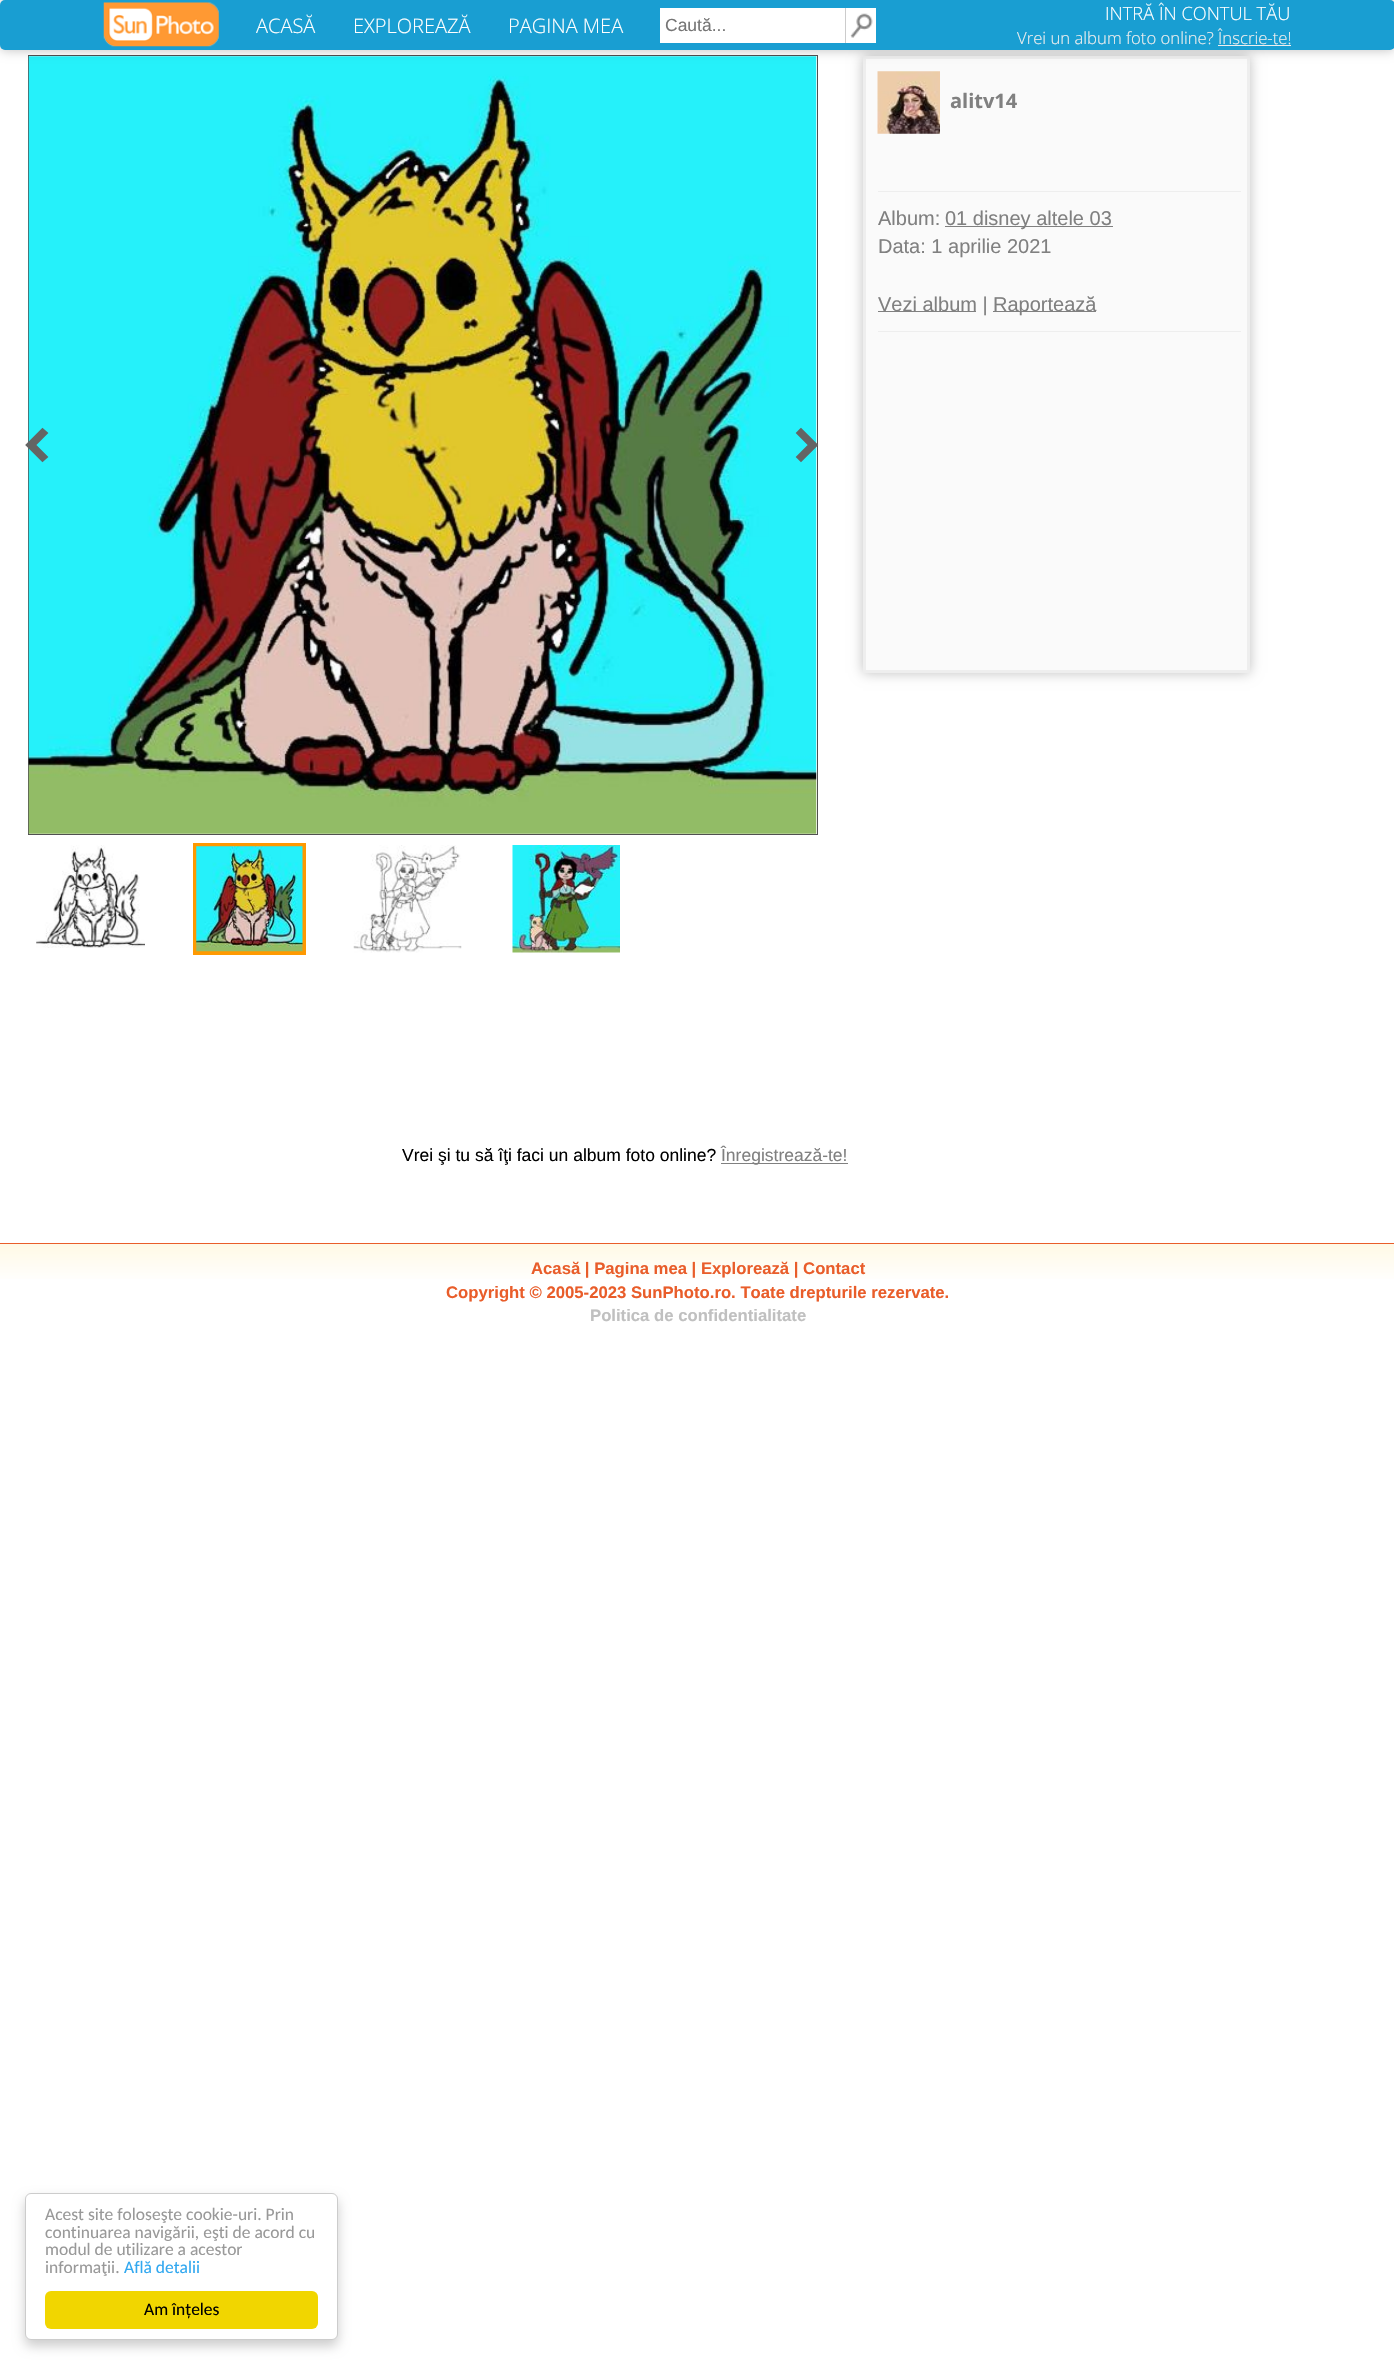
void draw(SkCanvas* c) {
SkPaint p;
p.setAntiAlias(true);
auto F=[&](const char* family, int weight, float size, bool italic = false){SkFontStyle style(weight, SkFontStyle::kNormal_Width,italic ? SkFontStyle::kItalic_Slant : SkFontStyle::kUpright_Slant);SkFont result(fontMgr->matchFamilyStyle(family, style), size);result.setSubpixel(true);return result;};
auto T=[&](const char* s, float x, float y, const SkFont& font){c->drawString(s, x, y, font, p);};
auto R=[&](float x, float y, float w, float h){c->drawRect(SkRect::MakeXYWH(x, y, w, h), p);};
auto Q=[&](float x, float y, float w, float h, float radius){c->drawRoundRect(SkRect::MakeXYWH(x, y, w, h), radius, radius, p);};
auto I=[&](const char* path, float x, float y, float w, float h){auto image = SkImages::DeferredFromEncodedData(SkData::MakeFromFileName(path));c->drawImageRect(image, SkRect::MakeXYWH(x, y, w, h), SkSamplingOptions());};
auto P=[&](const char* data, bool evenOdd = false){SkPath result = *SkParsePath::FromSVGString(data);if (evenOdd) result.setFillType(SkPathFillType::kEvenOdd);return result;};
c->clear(0xffffffff);
p.setStroke(true);
p.setStrokeWidth(1);
p.setColor(0xff505050);
c->drawRect(SkRect::MakeXYWH(28.5,55.5,789,779),p);
I("3.png",28,56,789,778);
p.setStroke(false);
p.setColor(0x40000000);
p.setMaskFilter(SkMaskFilter::MakeBlur(kNormal_SkBlurStyle, 6));
c->drawRect(SkRect::MakeXYWH(863,56,387,617),p);
p.setMaskFilter(nullptr);
p.setColor(0xfffafafa);
c->drawRect(SkRect::MakeXYWH(864.5,57.5,384,614),p);
p.setStroke(true);
p.setStrokeWidth(3);
p.setColor(0xffeeeeee);
c->drawRect(SkRect::MakeXYWH(864.5,57.5,384,614),p);
p.setStroke(false);
p.setColor(0x40000000);
p.setMaskFilter(SkMaskFilter::MakeBlur(kNormal_SkBlurStyle, 6));
c->drawRoundRect(SkRect::MakeXYWH(0,0,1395,50),5,5,p);
p.setMaskFilter(nullptr);
p.setColor(0xff199ed2);
Q(0,0,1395,50,5);
I("1.png",103,2,116,45);
auto f1 = F("Open Sans",300,20);
p.setColor(0xffffffff);
T("ACASĂ",256,33,f1);
T("EXPLOREAZĂ",353,33,f1);
T("PAGINA MEA",508,33,f1);
R(660,8,185,35);
auto f2 = F("Liberation Sans",400,17.5);
p.setColor(0xff757575);
T("Caută...",665,31,f2);
p.setColor(0xffffffff);
R(846,8,30,35);
p.setColor(0xffcccccc);
R(845,8,1,35);
I("2.png",850,13,23,25);
auto f3 = F("Open Sans",300,18.25);
p.setColor(0xffffffff);
T("INTRĂ ÎN CONTUL TĂU",1105,20,f3);
auto f4 = F("Open Sans",300,16.7);
p.setColor(0xffeeeeee);
T("Vrei un album foto online? Înscrie-te!",1017,44,f4);
R(1218,45,73,1);
p.setColor(0xff646464);
c->drawPath(P("M46.5 433l-4-3.5l-15.5 15.5l15.5 15.5l4-3.5l-12-12z"),p);
p.setStroke(true);
p.setStrokeWidth(2.6);
c->drawPath(P("M46.5 433l-4-3.5l-15.5 15.5l15.5 15.5l4-3.5l-12-12z"),p);
p.setStroke(false);
c->drawPath(P("M801 429.5l-3.5 3.5l12 12l-12 12l3.5 3.5l15.5-15.5z"),p);
p.setStroke(true);
c->drawPath(P("M801 429.5l-3.5 3.5l12 12l-12 12l3.5 3.5l15.5-15.5z"),p);
I("4.png",877,71,63,63);
auto f5 = F("Open Sans",700,20);
p.setStroke(false);
p.setColor(0xff808080);
T("alitv14",950,108,f5);
p.setColor(0xffeeeeee);
R(878,191,363,1);
auto f6 = F("Liberation Sans",400,20);
p.setColor(0xff808080);
T("Album:",878,225,f6);
R(945,226,168,1);
T("01 disney altele 03",945,225,f6);
T("Data: 1 aprilie 2021",878,253,f6);
R(878,311,98,1);
T("Vezi album |",878,311,f6);
R(993,311,103,1);
T("Raportează",993,311,f6);
p.setColor(0xffeeeeee);
R(878,331,363,1);
I("5.png",36,845,109,103);
p.setStroke(true);
p.setStrokeWidth(4);
p.setColor(0xfffe9901);
c->drawRect(SkRect::MakeXYWH(195,845,109,108),p);
I("6.png",196,846,107,106);
I("7.png",353,845,109,108);
I("8.png",512,845,108,108);
p.setStroke(false);
p.setColor(0xff000000);
T("Vrei şi tu să îţi faci un album foto online?",402,1161,f2);
p.setColor(0xff808080);
R(721,1163,127,1);
T("Înregistrează-te!",721,1161,f2);
{
const SkColor colors[] = {0xfffff9e5,0xffffffff};
const float stops[] = {0,1};
const SkPoint ends[] = {{698,1244}, {698,1283}};
p.setShader(SkGradientShader::MakeLinear(ends, colors, stops, 2, SkTileMode::kClamp));
p.setAlpha(255);
}
R(0,1244,1394,35);
p.setShader(nullptr);
p.setColor(0xffe95d2a);
R(0,1243,1394,1);
auto f7 = F("Liberation Sans",700,16.7);
T("Acasă | Pagina mea | Explorează | Contact",531,1274,f7);
T("Copyright © 2005-2023 SunPhoto.ro. Toate drepturile rezervate.",446,1298,f7);
p.setColor(0xffc0c0c0);
T("Politica de confidentialitate",590,1321,f7);
p.setColor(0x33000000);
p.setMaskFilter(SkMaskFilter::MakeBlur(kNormal_SkBlurStyle, 6));
c->drawRoundRect(SkRect::MakeXYWH(25,2199,313,147),6,6,p);
p.setMaskFilter(nullptr);
p.setColor(0xffffffff);
c->drawRoundRect(SkRect::MakeXYWH(25.5,2193.5,312,146),5.5,5.5,p);
p.setStroke(true);
p.setStrokeWidth(1);
p.setColor(0xffcccccc);
c->drawRoundRect(SkRect::MakeXYWH(25.5,2193.5,312,146),5.5,5.5,p);
auto f8 = F("Carlito",400,17.5);
p.setStroke(false);
p.setColor(0xff999999);
T("Acest site foloseşte cookie-uri. Prin",45,2220,f8);
T("continuarea navigării, eşti de acord cu",45,2238,f8);
T("modul de utilizare a acestor",45,2255,f8);
T("informaţii.",45,2273,f8);
p.setColor(0xff31a8f0);
T("Află detalii",124,2273,f8);
p.setColor(0xfff1d600);
Q(45,2291,273,38,6);
p.setColor(0xff000000);
T("Am înțeles",144,2315,f8);
}
